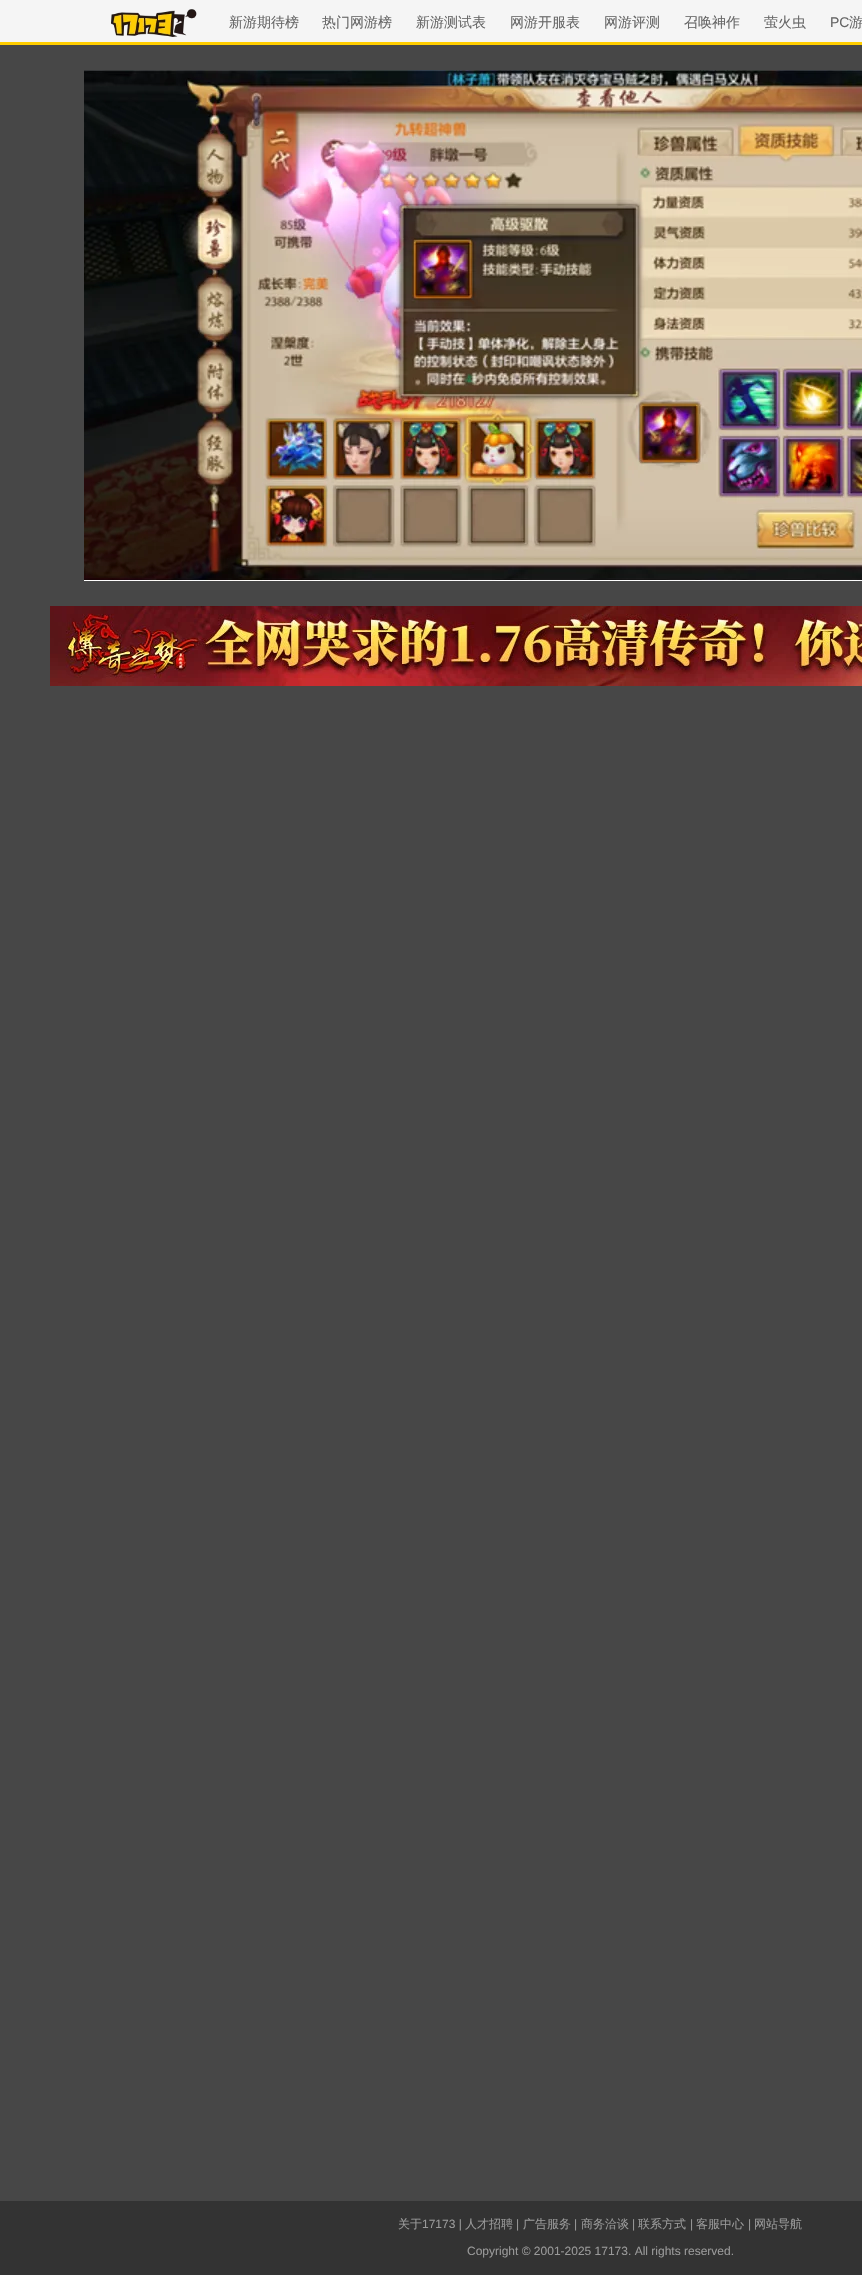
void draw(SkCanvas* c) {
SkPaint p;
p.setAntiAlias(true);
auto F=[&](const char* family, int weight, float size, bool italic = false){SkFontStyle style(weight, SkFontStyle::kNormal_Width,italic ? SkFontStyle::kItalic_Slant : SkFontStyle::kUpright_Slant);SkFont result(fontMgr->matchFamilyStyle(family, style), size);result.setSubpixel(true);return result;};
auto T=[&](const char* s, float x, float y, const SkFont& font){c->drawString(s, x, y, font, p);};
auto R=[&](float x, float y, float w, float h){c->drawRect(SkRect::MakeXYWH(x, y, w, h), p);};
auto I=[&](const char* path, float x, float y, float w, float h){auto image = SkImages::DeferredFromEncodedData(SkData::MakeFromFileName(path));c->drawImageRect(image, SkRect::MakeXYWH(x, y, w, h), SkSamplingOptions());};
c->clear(0xff474747);
p.setColor(0xfff5f5f5);
R(0,0,862,42);
p.setColor(0xffffcd00);
R(0,42,862,3);
I("1.png",111,9,86,28);
auto f1 = F("WenQuanYi Zen Hei",500,14);
p.setColor(0xff666666);
T("新游期待榜",229,27,f1);
T("热门网游榜",322,27,f1);
T("新游测试表",416,27,f1);
T("网游开服表",510,27,f1);
T("网游评测",604,27,f1);
T("召唤神作",684,27,f1);
T("萤火虫",764,27,f1);
auto f2 = F("Liberation Sans",400,14);
T("PC",830,27,f2);
T("游",849,27,f1);
I("2.png",84,70,778,511);
I("3.png",50,606,812,80);
p.setColor(0xff333333);
R(0,2201,862,74);
auto f3 = F("WenQuanYi Zen Hei",500,12);
p.setColor(0xff999999);
T("关于",398,2228,f3);
auto f4 = F("Liberation Sans",400,12);
T("17173 |",422,2228,f4);
T("人才招聘",465,2228,f3);
T("|",516,2228,f4);
T("广告服务",523,2228,f3);
T("|",574,2228,f4);
T("商务洽谈",581,2228,f3);
T("|",632,2228,f4);
T("联系方式",638,2228,f3);
T("|",690,2228,f4);
T("客服中心",696,2228,f3);
T("|",748,2228,f4);
T("网站导航",754,2228,f3);
T("Copyright © 2001-2025 17173. All rights reserved.",467,2255,f4);
}
